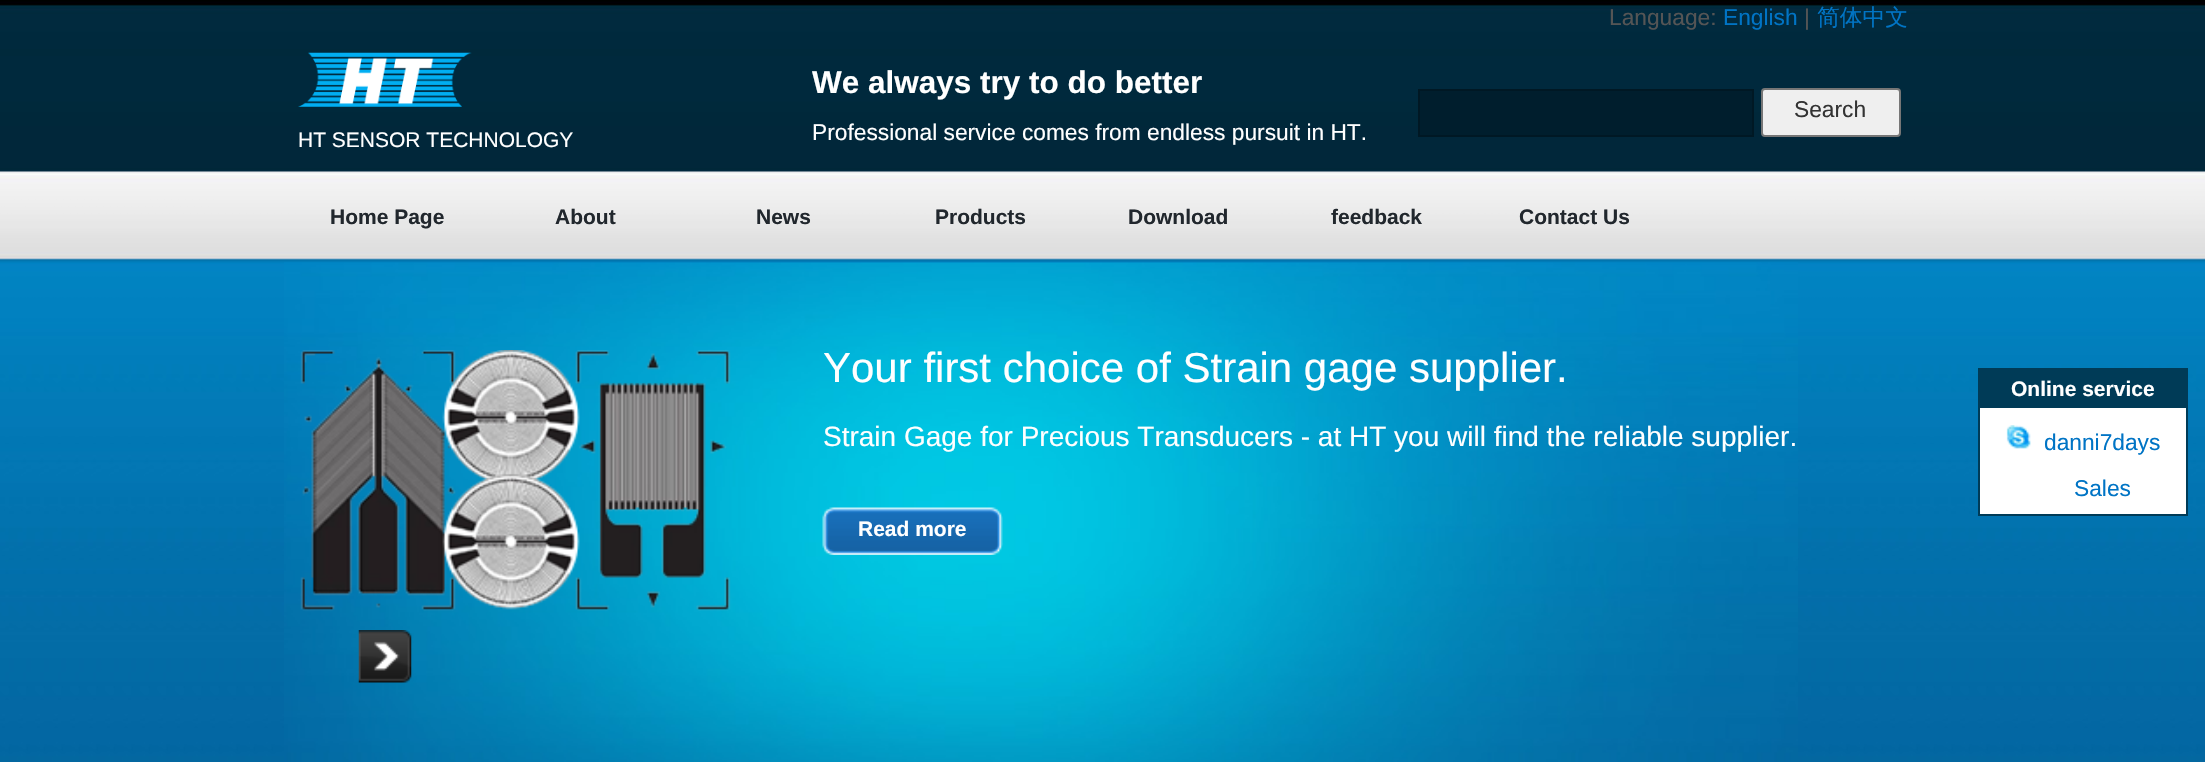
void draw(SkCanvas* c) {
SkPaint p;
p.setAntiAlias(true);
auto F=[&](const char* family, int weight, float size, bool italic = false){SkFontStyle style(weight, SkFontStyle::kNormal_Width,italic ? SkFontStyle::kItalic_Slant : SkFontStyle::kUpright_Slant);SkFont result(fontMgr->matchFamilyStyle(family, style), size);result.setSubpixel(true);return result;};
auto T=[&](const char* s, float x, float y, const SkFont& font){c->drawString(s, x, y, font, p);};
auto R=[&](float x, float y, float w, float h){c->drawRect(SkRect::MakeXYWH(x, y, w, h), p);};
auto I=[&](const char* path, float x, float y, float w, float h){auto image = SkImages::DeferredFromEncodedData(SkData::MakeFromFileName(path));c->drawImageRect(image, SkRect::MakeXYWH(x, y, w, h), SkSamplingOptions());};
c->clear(0xffffffff);
I("1.png",0,0,2205,762);
auto f1 = F("Liberation Sans",400,22.75);
p.setColor(0xff555555);
T("Language:",1609,25,f1);
p.setColor(0xff0074c5);
T("English",1723,25,f1);
p.setColor(0xff555555);
T("|",1804,25,f1);
auto f2 = F("WenQuanYi Zen Hei",500,22.75);
p.setColor(0xff0074c5);
T("简体中文",1817,25,f2);
auto f3 = F("Liberation Sans",700,31.5);
p.setColor(0xffffffff);
T("We always try to do better",812,93,f3);
T("Professional service comes from endless pursuit in HT.",812,140,f1);
p.setColor(0xff001e2d);
c->drawRect(SkRect::MakeXYWH(1419,90,334,46),p);
p.setStroke(true);
p.setStrokeWidth(2);
p.setColor(0xff001824);
c->drawRect(SkRect::MakeXYWH(1419,90,334,46),p);
p.setStroke(false);
p.setColor(0xffefefef);
c->drawRoundRect(SkRect::MakeXYWH(1762,89,138,47),3,3,p);
p.setStroke(true);
p.setColor(0xff767676);
c->drawRoundRect(SkRect::MakeXYWH(1762,89,138,47),3,3,p);
p.setStroke(false);
p.setColor(0xff333333);
T("Search",1794,117,f1);
I("2.png",298,52,174,55);
auto f4 = F("Liberation Sans",400,21);
p.setColor(0xffffffff);
T("HT SENSOR TECHNOLOGY",298,147,f4);
auto f5 = F("Liberation Sans",700,21);
p.setColor(0xff21272d);
T("Home Page",330,224,f5);
T("About",555,224,f5);
T("News",756,224,f5);
T("Products",935,224,f5);
T("Download",1128,224,f5);
T("feedback",1331,224,f5);
T("Contact Us",1519,224,f5);
I("3.png",284,262,1514,500);
I("4.png",300,350,431,261);
auto f6 = F("Liberation Sans",400,42);
p.setColor(0xffffffff);
T("Your first choice of Strain gage supplier.",823,382,f6);
auto f7 = F("Liberation Sans",400,28);
T("Strain Gage for Precious Transducers - at HT you will find the reliable supplier.",823,446,f7);
I("5.png",822,507,181,48);
T("Read more",858,536,f5);
I("6.png",358,630,54,53);
R(1980,408,206,106);
p.setStroke(true);
p.setColor(0xff003b57);
c->drawRect(SkRect::MakeXYWH(1979,369,208,146),p);
p.setStroke(false);
R(1980,370,206,38);
p.setColor(0xffffffff);
T("Online service",2011,396,f5);
I("7.png",2006,425,25,24);
p.setColor(0xff0074c5);
T("danni7days",2044,450,f1);
T("Sales",2074,496,f1);
}
